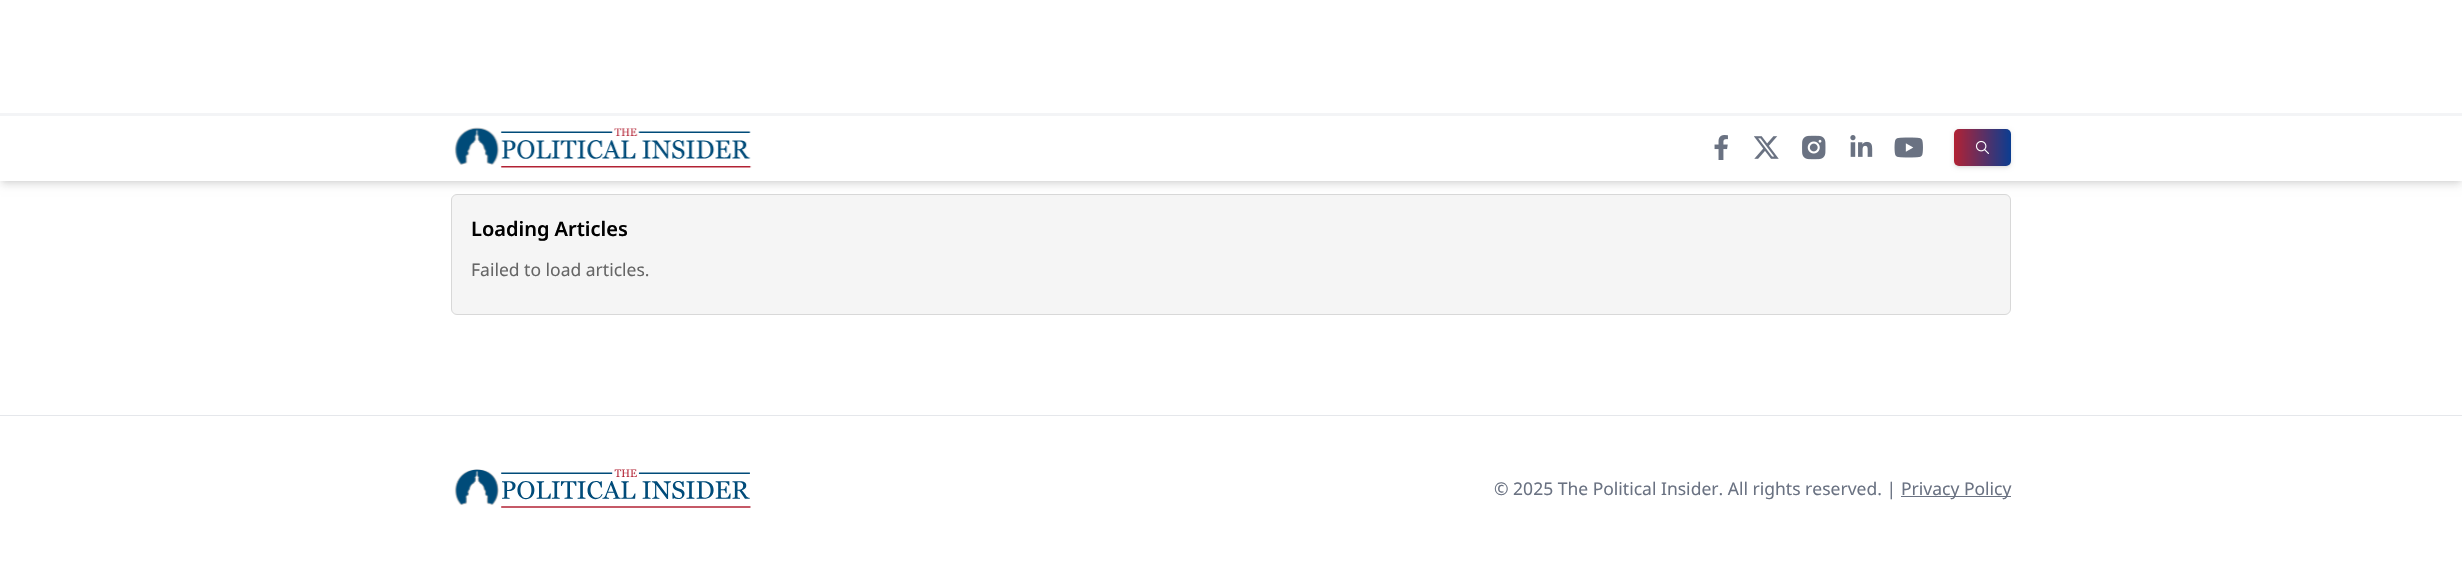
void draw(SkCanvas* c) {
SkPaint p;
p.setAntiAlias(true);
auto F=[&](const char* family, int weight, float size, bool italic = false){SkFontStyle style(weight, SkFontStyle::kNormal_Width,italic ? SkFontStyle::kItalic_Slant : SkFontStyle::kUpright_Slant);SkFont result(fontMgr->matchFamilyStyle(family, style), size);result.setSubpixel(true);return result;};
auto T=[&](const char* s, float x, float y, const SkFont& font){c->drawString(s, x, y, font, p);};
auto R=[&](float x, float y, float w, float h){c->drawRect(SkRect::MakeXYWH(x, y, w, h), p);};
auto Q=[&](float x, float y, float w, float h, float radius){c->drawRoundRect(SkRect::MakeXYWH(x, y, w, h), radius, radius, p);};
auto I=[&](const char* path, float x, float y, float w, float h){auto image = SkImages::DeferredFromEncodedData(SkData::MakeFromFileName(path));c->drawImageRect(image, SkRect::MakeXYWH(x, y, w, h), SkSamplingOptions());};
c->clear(0xffffffff);
p.setColor(0x1a000000);
p.setMaskFilter(SkMaskFilter::MakeBlur(kNormal_SkBlurStyle, 2.5));
c->drawRect(SkRect::MakeXYWH(3,5,2457,176),p);
p.setMaskFilter(nullptr);
p.setColor(0xfff5f5f5);
c->drawRoundRect(SkRect::MakeXYWH(451.5,194.5,1559,120),5.5,5.5,p);
p.setStroke(true);
p.setStrokeWidth(1);
p.setColor(0xffd8d8d8);
c->drawRoundRect(SkRect::MakeXYWH(451.5,194.5,1559,120),5.5,5.5,p);
p.setStroke(false);
p.setColor(0x1a000000);
p.setMaskFilter(SkMaskFilter::MakeBlur(kNormal_SkBlurStyle, 4));
c->drawRect(SkRect::MakeXYWH(1,6,2460,179),p);
p.setMaskFilter(nullptr);
p.setColor(0xffffffff);
R(0,0,2462,181);
p.setColor(0xfff3f4f6);
R(0,113,2462,3);
I("1.png",454,127,298,41);
I("2.png",1714,135,14,25);
I("3.png",1754,136,25,23);
I("4.png",1802,135,24,25);
I("5.png",1850,135,23,22);
I("6.png",1894,137,29,21);
p.setColor(0x1a000000);
p.setMaskFilter(SkMaskFilter::MakeBlur(kNormal_SkBlurStyle, 1));
c->drawRoundRect(SkRect::MakeXYWH(1955,131,55,35),4,4,p);
p.setMaskFilter(nullptr);
p.setMaskFilter(SkMaskFilter::MakeBlur(kNormal_SkBlurStyle, 2));
c->drawRoundRect(SkRect::MakeXYWH(1954,130,57,38),5,5,p);
p.setMaskFilter(nullptr);
{
const SkColor colors[] = {0xffb22234,0xff0b3d91};
const float stops[] = {0,1};
const SkPoint ends[] = {{1954,148}, {2011,148}};
p.setShader(SkGradientShader::MakeLinear(ends, colors, stops, 2, SkTileMode::kClamp));
p.setAlpha(255);
}
Q(1954,129,57,37,5);
I("7.png",1975,140,14,14);
auto f1 = F("Noto Sans",600,20);
p.setShader(nullptr);
p.setColor(0xff000000);
T("Loading Articles",471,236,f1);
auto f2 = F("Noto Sans",400,17.5);
p.setColor(0xff666666);
T("Failed to load articles.",471,276,f2);
p.setColor(0xffe5e7eb);
R(0,415,2462,1);
I("8.png",454,469,297,39);
p.setColor(0xff6a7282);
T("© 2025 The Political Insider. All rights reserved. |",1494,495,f2);
R(1901,496,110,1);
T("Privacy Policy",1901,495,f2);
}
